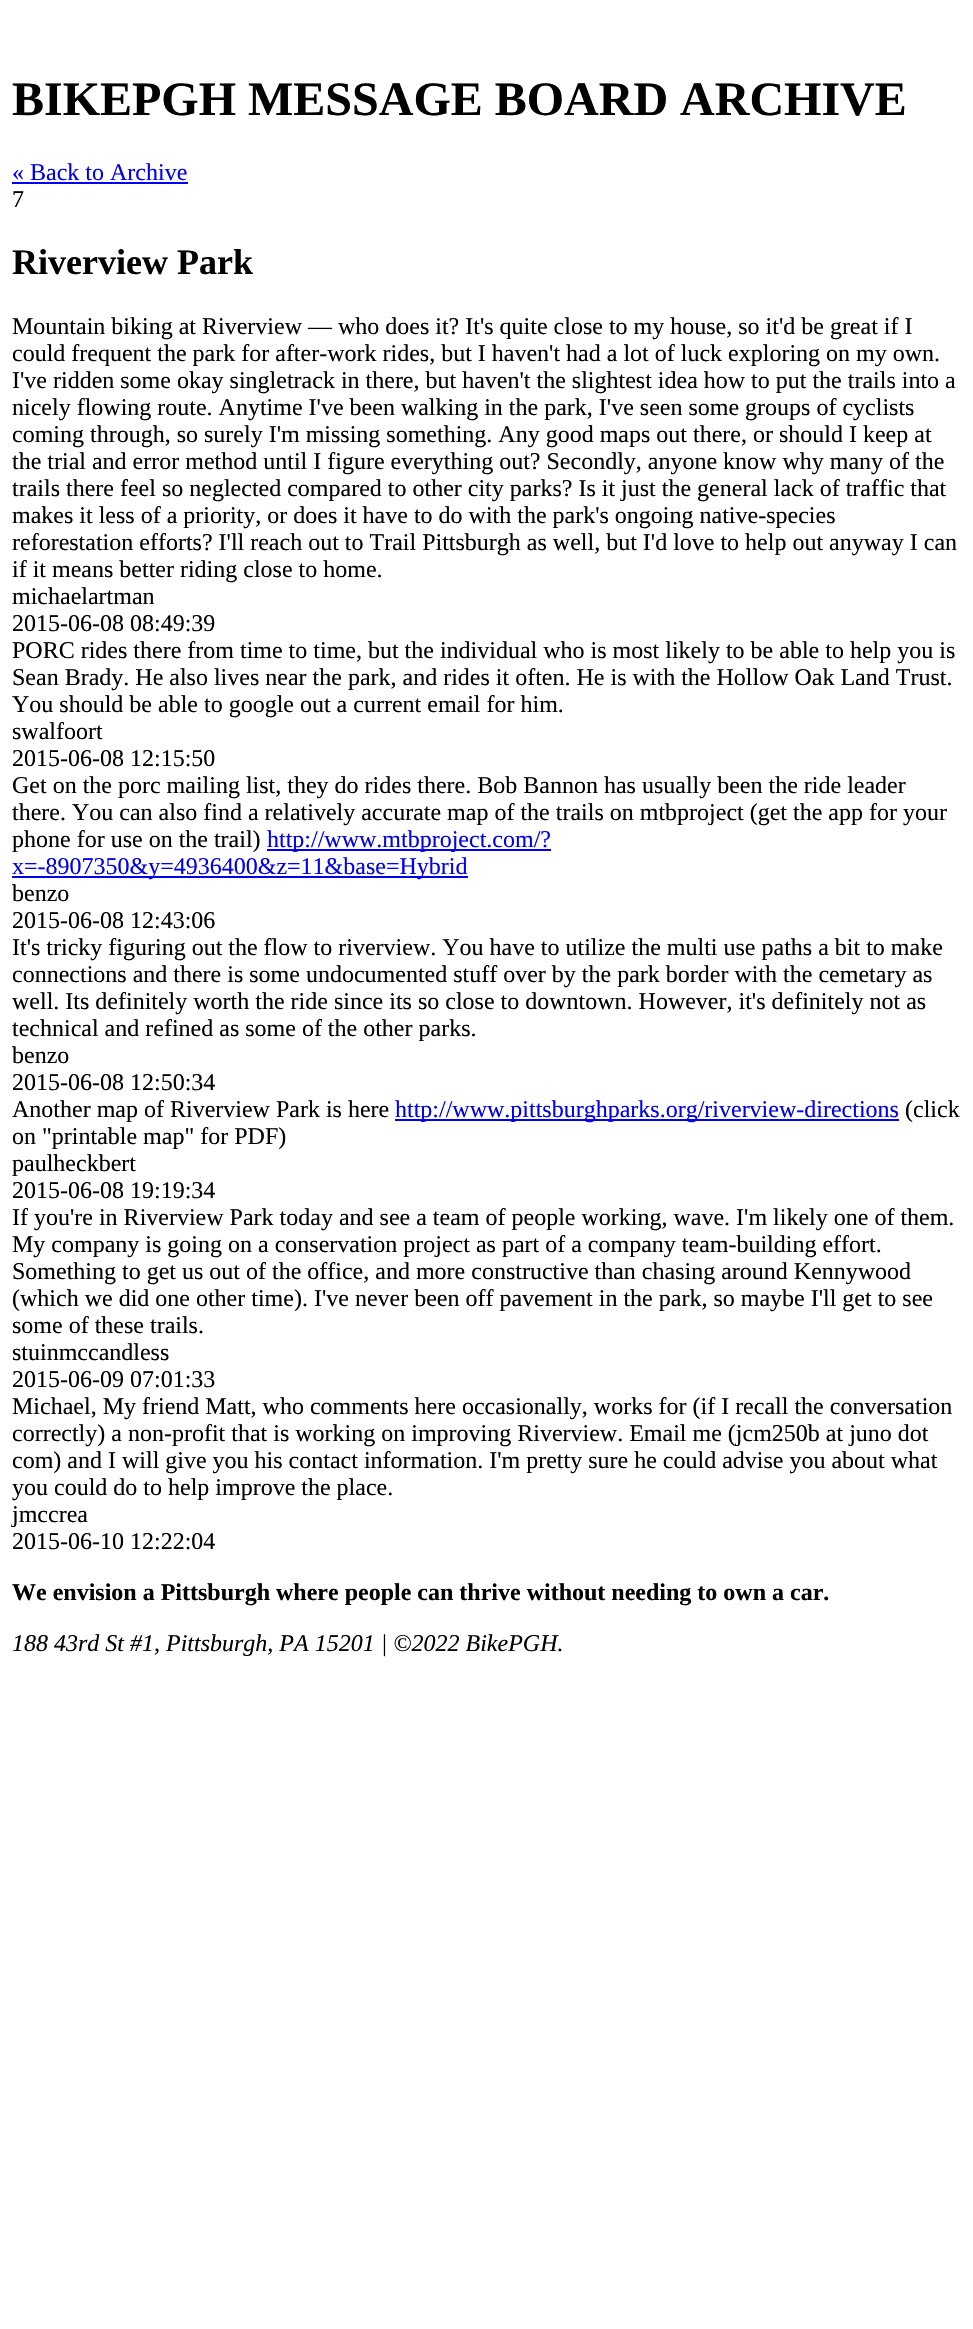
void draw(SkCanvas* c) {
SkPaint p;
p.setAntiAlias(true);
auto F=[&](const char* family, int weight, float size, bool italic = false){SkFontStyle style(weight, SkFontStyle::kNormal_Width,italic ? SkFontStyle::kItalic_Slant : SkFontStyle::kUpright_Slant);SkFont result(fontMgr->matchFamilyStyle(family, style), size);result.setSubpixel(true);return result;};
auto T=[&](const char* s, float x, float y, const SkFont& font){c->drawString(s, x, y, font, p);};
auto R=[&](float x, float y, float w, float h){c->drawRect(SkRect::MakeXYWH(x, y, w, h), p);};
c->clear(0xffffffff);
auto f1 = F("Liberation Serif",700,48);
p.setColor(0xff000000);
T("BIKEPGH MESSAGE BOARD ARCHIVE",12,115,f1);
auto f2 = F("Liberation Serif",400,24);
p.setColor(0xff0000ee);
T("« Back to Archive",12,180,f2);
R(12,182,176,2);
p.setColor(0xff000000);
T("7",12,207,f2);
auto f3 = F("Liberation Serif",700,36);
T("Riverview Park",12,274,f3);
T("Mountain biking at Riverview — who does it? It's quite close to my house, so it'd be great if I",12,334,f2);
T("could frequent the park for after-work rides, but I haven't had a lot of luck exploring on my own.",12,361,f2);
T("I've ridden some okay singletrack in there, but haven't the slightest idea how to put the trails into a",12,388,f2);
T("nicely flowing route. Anytime I've been walking in the park, I've seen some groups of cyclists",12,415,f2);
T("coming through, so surely I'm missing something. Any good maps out there, or should I keep at",12,442,f2);
T("the trial and error method until I figure everything out? Secondly, anyone know why many of the",12,469,f2);
T("trails there feel so neglected compared to other city parks? Is it just the general lack of traffic that",12,496,f2);
T("makes it less of a priority, or does it have to do with the park's ongoing native-species",12,523,f2);
T("reforestation efforts? I'll reach out to Trail Pittsburgh as well, but I'd love to help out anyway I can",12,550,f2);
T("if it means better riding close to home.",12,577,f2);
T("michaelartman",12,604,f2);
T("2015-06-08 08:49:39",12,631,f2);
T("PORC rides there from time to time, but the individual who is most likely to be able to help you is",12,658,f2);
T("Sean Brady. He also lives near the park, and rides it often. He is with the Hollow Oak Land Trust.",12,685,f2);
T("You should be able to google out a current email for him.",12,712,f2);
T("swalfoort",12,739,f2);
T("2015-06-08 12:15:50",12,766,f2);
T("Get on the porc mailing list, they do rides there. Bob Bannon has usually been the ride leader",12,793,f2);
T("there. You can also find a relatively accurate map of the trails on mtbproject (get the app for your",12,820,f2);
T("phone for use on the trail)",12,847,f2);
p.setColor(0xff0000ee);
R(267,849,284,2);
T("http://www.mtbproject.com/?",267,847,f2);
R(12,876,456,2);
T("x=-8907350&y=4936400&z=11&base=Hybrid",12,874,f2);
p.setColor(0xff000000);
T("benzo",12,901,f2);
T("2015-06-08 12:43:06",12,928,f2);
T("It's tricky figuring out the flow to riverview. You have to utilize the multi use paths a bit to make",12,955,f2);
T("connections and there is some undocumented stuff over by the park border with the cemetary as",12,982,f2);
T("well. Its definitely worth the ride since its so close to downtown. However, it's definitely not as",12,1009,f2);
T("technical and refined as some of the other parks.",12,1036,f2);
T("benzo",12,1063,f2);
T("2015-06-08 12:50:34",12,1090,f2);
T("Another map of Riverview Park is here",12,1117,f2);
p.setColor(0xff0000ee);
R(395,1119,504,2);
T("http://www.pittsburghparks.org/riverview-directions",395,1117,f2);
p.setColor(0xff000000);
T("(click",905,1117,f2);
T("on \"printable map\" for PDF)",12,1144,f2);
T("paulheckbert",12,1171,f2);
T("2015-06-08 19:19:34",12,1198,f2);
T("If you're in Riverview Park today and see a team of people working, wave. I'm likely one of them.",12,1225,f2);
T("My company is going on a conservation project as part of a company team-building effort.",12,1252,f2);
T("Something to get us out of the office, and more constructive than chasing around Kennywood",12,1279,f2);
T("(which we did one other time). I've never been off pavement in the park, so maybe I'll get to see",12,1306,f2);
T("some of these trails.",12,1333,f2);
T("stuinmccandless",12,1360,f2);
T("2015-06-09 07:01:33",12,1387,f2);
T("Michael, My friend Matt, who comments here occasionally, works for (if I recall the conversation",12,1414,f2);
T("correctly) a non-profit that is working on improving Riverview. Email me (jcm250b at juno dot",12,1441,f2);
T("com) and I will give you his contact information. I'm pretty sure he could advise you about what",12,1468,f2);
T("you could do to help improve the place.",12,1495,f2);
T("jmccrea",12,1522,f2);
T("2015-06-10 12:22:04",12,1549,f2);
auto f4 = F("Liberation Serif",700,24);
T("We envision a Pittsburgh where people can thrive without needing to own a car.",12,1600,f4);
auto f5 = F("Liberation Serif",400,24,true);
T("188 43rd St #1, Pittsburgh, PA 15201 | ©2022 BikePGH.",12,1651,f5);
}
